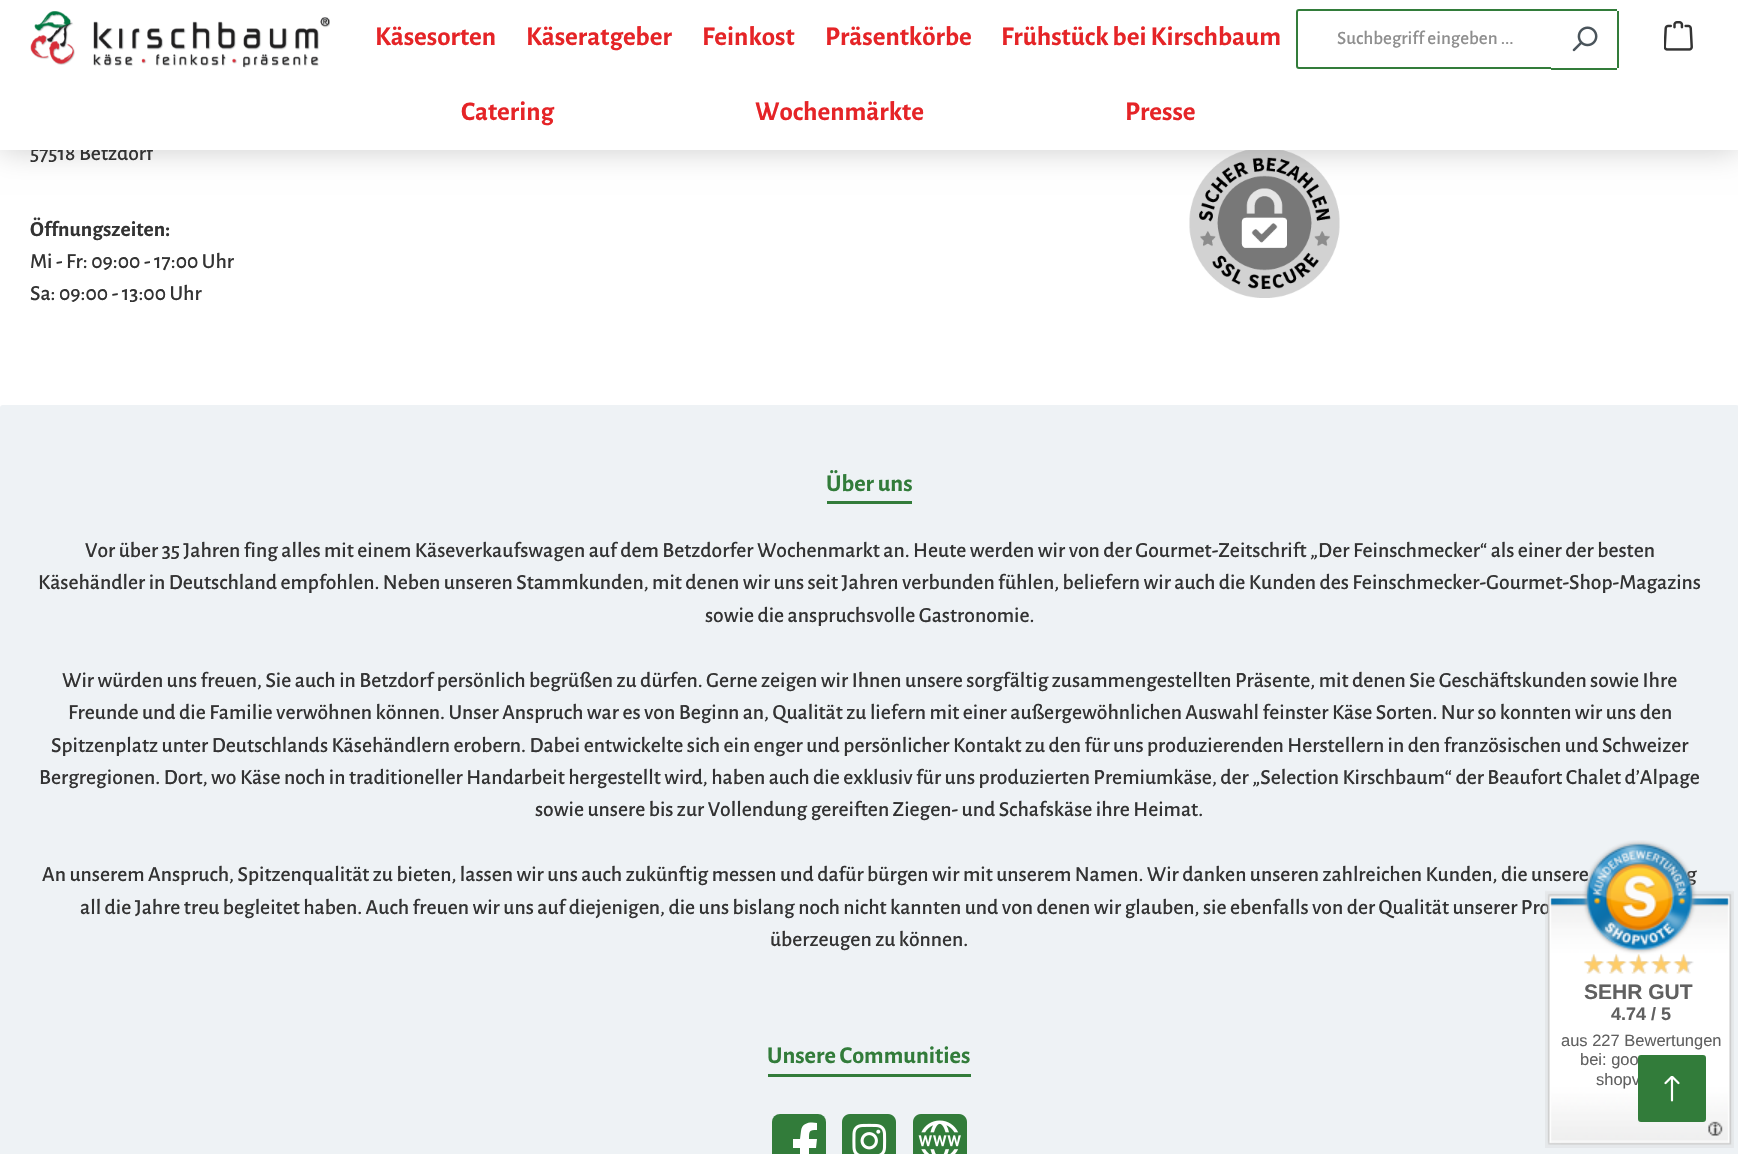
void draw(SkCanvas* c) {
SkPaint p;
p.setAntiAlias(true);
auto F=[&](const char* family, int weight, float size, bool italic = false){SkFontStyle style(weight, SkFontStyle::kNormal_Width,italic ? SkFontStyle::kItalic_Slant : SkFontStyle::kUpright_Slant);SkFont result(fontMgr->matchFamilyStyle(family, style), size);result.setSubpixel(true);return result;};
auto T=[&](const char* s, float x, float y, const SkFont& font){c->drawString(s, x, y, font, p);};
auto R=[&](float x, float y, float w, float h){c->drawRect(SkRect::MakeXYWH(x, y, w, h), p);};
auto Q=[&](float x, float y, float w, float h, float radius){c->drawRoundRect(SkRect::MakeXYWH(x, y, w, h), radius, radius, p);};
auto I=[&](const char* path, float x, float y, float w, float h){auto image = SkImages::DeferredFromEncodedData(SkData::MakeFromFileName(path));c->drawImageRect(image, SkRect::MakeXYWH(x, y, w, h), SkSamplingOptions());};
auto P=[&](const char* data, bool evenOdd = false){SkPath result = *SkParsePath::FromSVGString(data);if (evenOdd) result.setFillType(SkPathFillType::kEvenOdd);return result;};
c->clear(0xffffffff);
I("4.png",1189,150,151,148);
p.setColor(0x33000000);
p.setMaskFilter(SkMaskFilter::MakeBlur(kNormal_SkBlurStyle, 15));
c->drawRect(SkRect::MakeXYWH(0,0,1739,150),p);
p.setMaskFilter(nullptr);
auto f1 = F("Alegreya Sans",500,21.6);
p.setColor(0xff333333);
T("57518 Betzdorf",30,160,f1);
p.setColor(0xffffffff);
R(0,0,1738,150);
auto f2 = F("Alegreya Sans",700,27);
p.setColor(0xffe52427);
T("Käsesorten",375,45,f2);
T("Käseratgeber",526,45,f2);
T("Feinkost",702,45,f2);
T("Präsentkörbe",825,45,f2);
T("Frühstück bei Kirschbaum",1001,45,f2);
T("Catering",461,120,f2);
T("Wochenmärkte",755,120,f2);
T("Presse",1125,120,f2);
I("1.png",30,11,300,57);
p.setStroke(true);
p.setStrokeWidth(2);
p.setColor(0xff327c3a);
c->drawPath(P("M1299 10h253v58h-253c-1 0-2-1-2-2v-54c0-1 1-2 2-2z"),p);
auto f3 = F("Alegreya Sans",500,19);
p.setStroke(false);
p.setColor(0xff8e8e8e);
T("Suchbegriff eingeben ...",1337,44,f3);
p.setColor(0xffffffff);
c->drawPath(P("M1551 9h65c1.5 0 3 1.5 3 3v54c0 1.5-1.5 3-3 3h-65z"),p);
p.setColor(0xff327c3a);
R(1551,9,66,2);
R(1617,11,2,57);
R(1551,68,66,2);
I("2.png",1572,26,26,26);
I("3.png",1664,21,29,30);
auto f4 = F("Alegreya Sans",700,21.6);
p.setColor(0xff333333);
T("Öffnungszeiten:",30,236,f4);
T("Mi - Fr: 09:00 - 17:00 Uhr",30,268,f1);
T("Sa: 09:00 - 13:00 Uhr",30,300,f1);
p.setColor(0xffeef2f5);
Q(0,405,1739,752,3);
p.setColor(0xff327c3a);
R(827,501,85,3);
auto f5 = F("Alegreya Sans",700,24.25);
T("Über uns",826,491,f5);
p.setColor(0xff333333);
T("Vor über 35 Jahren fing alles mit einem Käseverkaufswagen auf dem Betzdorfer Wochenmarkt an. Heute werden wir von der Gourmet-Zeitschrift „Der Feinschmecker“ als einer der besten",85,557,f1);
T("Käsehändler in Deutschland empfohlen. Neben unseren Stammkunden, mit denen wir uns seit Jahren verbunden fühlen, beliefern wir auch die Kunden des Feinschmecker-Gourmet-Shop-Magazins",38,589,f1);
T("sowie die anspruchsvolle Gastronomie.",705,622,f1);
T("Wir würden uns freuen, Sie auch in Betzdorf persönlich begrüßen zu dürfen.",62,687,f1);
T("Gerne zeigen wir Ihnen unsere sorgfältig zusammengestellten Präsente, mit denen Sie Geschäftskunden sowie Ihre",706,687,f1);
T("Freunde und die Familie verwöhnen können. Unser Anspruch war es von Beginn an, Qualität zu liefern mit einer außergewöhnlichen Auswahl feinster Käse Sorten. Nur so konnten wir uns den",68,719,f1);
T("Spitzenplatz unter Deutschlands Käsehändlern erobern. Dabei entwickelte sich ein enger und persönlicher Kontakt zu den für uns produzierenden Herstellern in den französischen und Schweizer",51,752,f1);
T("Bergregionen. Dort, wo Käse noch in traditioneller Handarbeit hergestellt wird, haben auch die exklusiv für uns produzierten Premiumkäse, der „Selection Kirschbaum“ der Beaufort Chalet d’Alpage",39,784,f1);
T("sowie unsere bis zur Vollendung gereiften Ziegen- und Schafskäse ihre Heimat.",535,816,f1);
T("An unserem Anspruch, Spitzenqualität zu bieten, lassen wir uns auch zukünftig messen und dafür bürgen wir mit unserem Namen. Wir danken unseren zahlreichen Kunden, die unsere",42,881,f1);
T("g",1686,881,f1);
T("all die Jahre treu begleitet haben. Auch freuen wir uns auf diejenigen, die uns bislang noch nicht kannten und von denen wir glauben, sie ebenfalls von der Qualität unserer Pro",80,914,f1);
T("überzeugen zu können.",770,946,f1);
p.setColor(0xff327c3a);
R(768,1074,203,3);
T("Unsere Communities",767,1063,f5);
Q(772,1114,54,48,8);
p.setColor(0xffffffff);
c->drawPath(P("M816 1148l1-9h-8c0-8 0-9 8-9v-7c-6-1-15-1-16 8l-1 8h-7v9h7v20h9v-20z"),p);
I("5.png",842,1114,54,40);
I("6.png",913,1114,54,40);
I("7.png",1545,840,189,308);
I("8.png",1584,954,105,20);
auto f6 = F("Liberation Sans",700,21);
p.setColor(0xff606060);
T("SEHR GUT",1584,999,f6);
auto f7 = F("Liberation Sans",700,18);
T("4.74 / 5",1611,1020,f7);
auto f8 = F("Liberation Sans",400,16.5);
T("aus 227 Bewertungen",1561,1046,f8);
T("bei: goo",1580,1065,f8);
T("shopv",1596,1085,f8);
p.setColor(0xff327c3a);
c->drawRoundRect(SkRect::MakeXYWH(1639,1056,66,65),2,2,p);
p.setStroke(true);
c->drawRoundRect(SkRect::MakeXYWH(1639,1056,66,65),2,2,p);
I("9.png",1664,1076,16,26);
}
